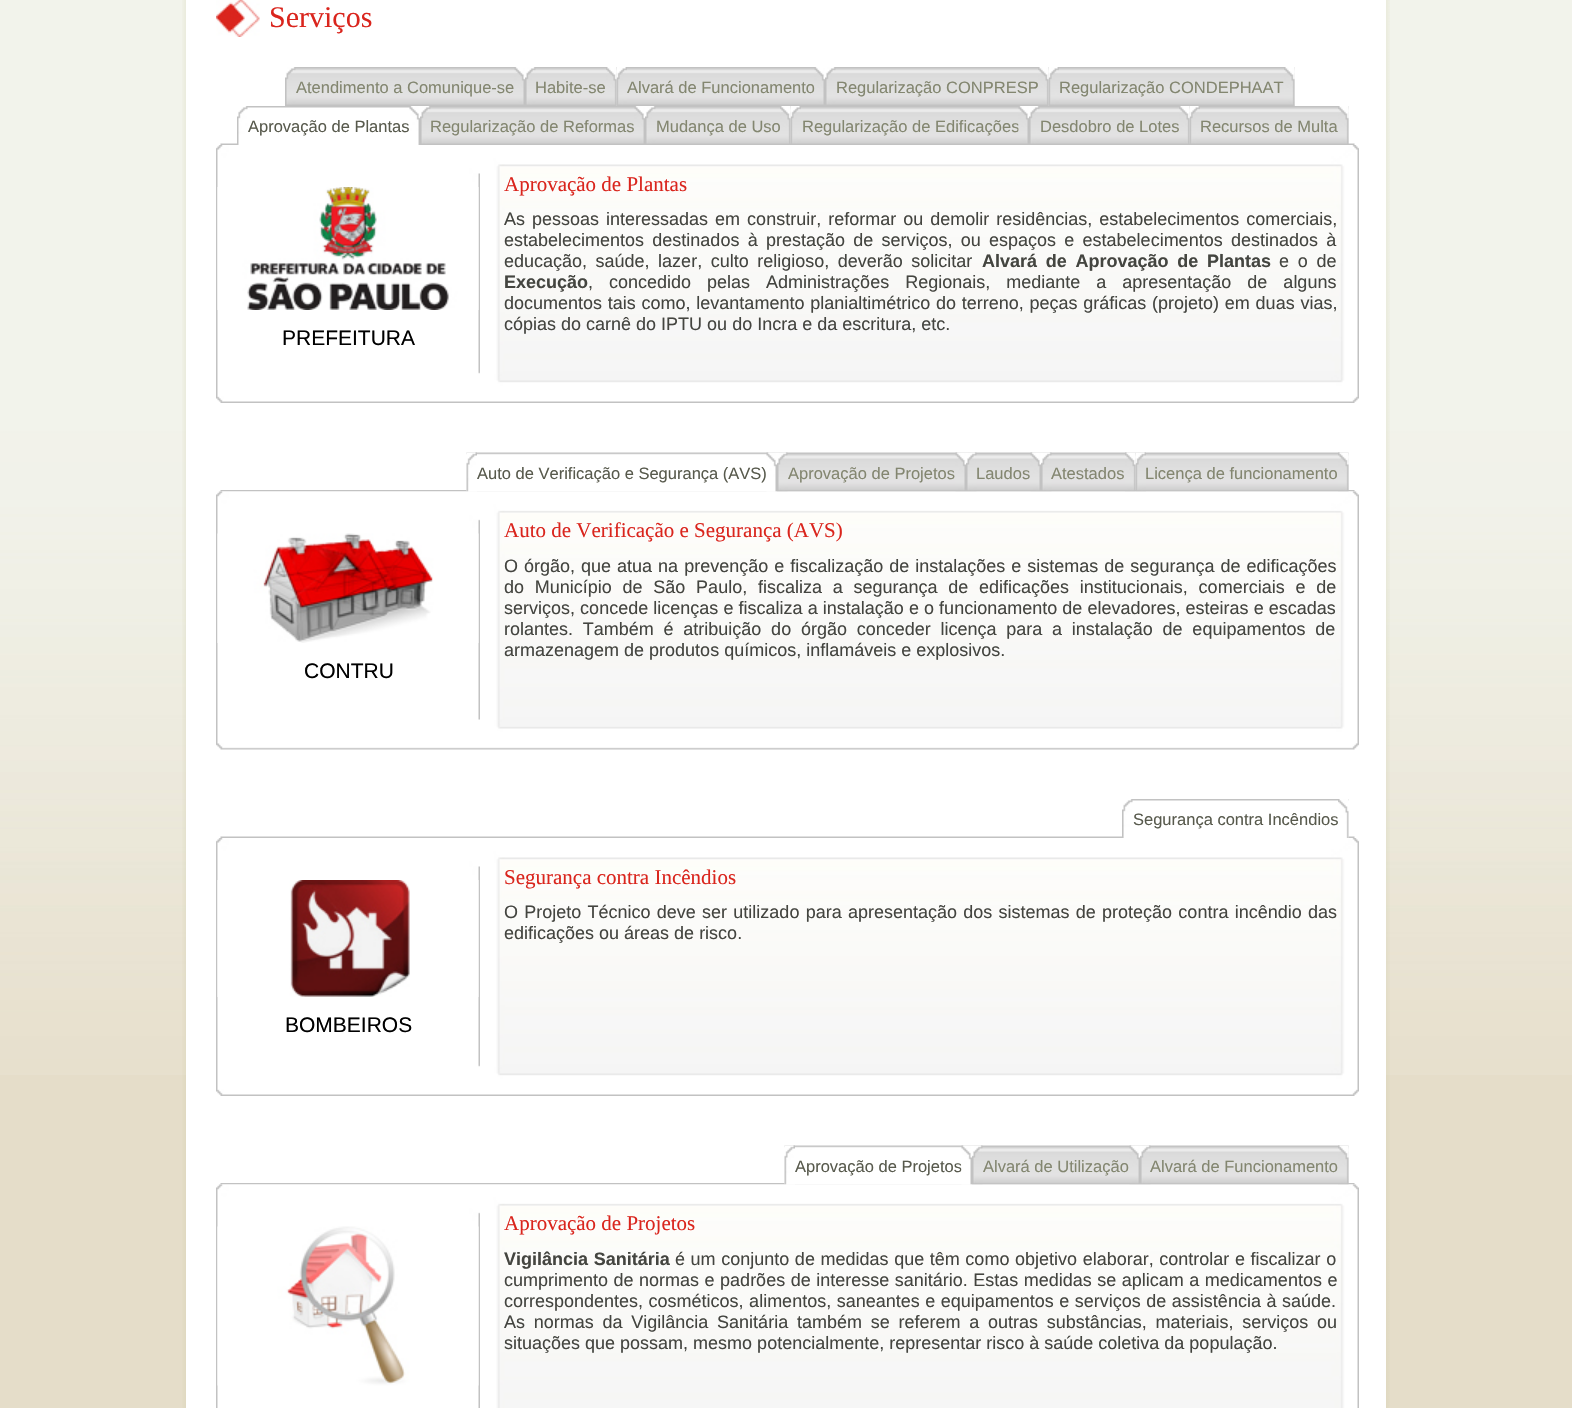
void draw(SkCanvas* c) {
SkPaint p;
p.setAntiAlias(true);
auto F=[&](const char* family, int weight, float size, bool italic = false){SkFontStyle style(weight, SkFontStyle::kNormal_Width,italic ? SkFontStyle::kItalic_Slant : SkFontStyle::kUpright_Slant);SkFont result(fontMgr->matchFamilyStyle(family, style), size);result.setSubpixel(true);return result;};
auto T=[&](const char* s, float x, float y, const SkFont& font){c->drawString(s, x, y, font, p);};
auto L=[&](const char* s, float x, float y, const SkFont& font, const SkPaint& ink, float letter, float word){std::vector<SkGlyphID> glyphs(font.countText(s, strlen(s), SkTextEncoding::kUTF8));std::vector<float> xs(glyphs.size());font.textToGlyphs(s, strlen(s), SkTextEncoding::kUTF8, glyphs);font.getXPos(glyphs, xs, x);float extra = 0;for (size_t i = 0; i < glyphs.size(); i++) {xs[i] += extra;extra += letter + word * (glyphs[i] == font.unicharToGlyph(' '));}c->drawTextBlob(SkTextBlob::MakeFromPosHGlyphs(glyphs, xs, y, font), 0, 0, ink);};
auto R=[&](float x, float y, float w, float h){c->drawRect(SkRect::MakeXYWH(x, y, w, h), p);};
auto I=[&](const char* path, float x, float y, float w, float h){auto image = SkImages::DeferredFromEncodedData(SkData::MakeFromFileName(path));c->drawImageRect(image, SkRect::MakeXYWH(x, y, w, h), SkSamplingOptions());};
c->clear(0xffe5ddc9);
I("1.png",0,0,1572,1075);
I("2.png",182,0,4,1408);
p.setColor(0xffffffff);
R(186,0,1200,1408);
I("3.png",216,0,44,37);
auto f1 = F("Liberation Serif",400,30);
p.setColor(0xffda251d);
T("Serviços",269,27,f1);
I("4.png",220,143,1135,2);
I("5.png",285,67,240,39);
I("6.png",285,67,11,38);
auto f2 = F("Liberation Sans",400,16.5);
p.setColor(0xff838670);
T("Atendimento a Comunique-se",296,93,f2);
I("7.png",514,67,11,38);
I("10.png",616,67,209,39);
I("11.png",616,67,11,39);
I("8.png",525,67,92,39);
I("6.png",525,67,11,38);
T("Habite-se",535,93,f2);
I("9.png",606,67,11,38);
T("Alvará de Funcionamento",627,93,f2);
I("12.png",814,67,11,38);
I("16.png",1048,67,247,39);
I("11.png",1048,67,11,39);
I("13.png",825,67,224,39);
I("14.png",825,67,11,38);
T("Regularização CONPRESP",836,93,f2);
I("15.png",1038,67,11,38);
T("Regularização CONDEPHAAT",1059,93,f2);
I("17.png",1284,67,11,39);
I("18.png",247,106,163,39);
I("19.png",237,106,11,39);
p.setColor(0xff585a4d);
T("Aprovação de Plantas",248,132,f2);
I("20.png",409,106,11,39);
I("21.png",430,106,205,38);
I("6.png",420,106,11,38);
p.setColor(0xff838670);
T("Regularização de Reformas",430,132,f2);
I("22.png",634,106,11,38);
I("25.png",790,106,229,38);
I("26.png",790,106,11,38);
I("23.png",655,106,136,38);
I("14.png",645,106,11,38);
T("Mudança de Uso",656,132,f2);
I("24.png",780,106,11,38);
T("Regularização de Edificações",802,132,f2);
I("27.png",1018,106,11,38);
I("30.png",1189,106,160,38);
I("31.png",1189,106,11,38);
I("28.png",1039,106,151,38);
I("6.png",1029,106,11,38);
T("Desdobro de Lotes",1040,132,f2);
I("29.png",1179,106,11,38);
T("Recursos de Multa",1200,132,f2);
I("32.png",1338,106,11,38);
I("33.png",480,145,879,258);
auto f3 = F("Liberation Serif",400,21);
p.setColor(0xffda251d);
T("Aprovação de Plantas",504,191,f3);
auto f4 = F("Liberation Sans",400,18);
p.setColor(0xff444540);
L("As pessoas interessadas em construir, reformar ou demolir residências, estabelecimentos comerciais,",504,225,f4,p,0,2);
L("estabelecimentos destinados à prestação de serviços, ou espaços e estabelecimentos destinados à",504,246,f4,p,0,3.25);
L("educação, saúde, lazer, culto religioso, deverão solicitar",504,267,f4,p,0,3.5);
auto f5 = F("Liberation Sans",700,18);
L("Alvará de Aprovação de Plantas",982,267,f5,p,0,3.75);
L("e o de",1279,267,f4,p,0,3.75);
T("Execução",504,288,f5);
L(", concedido pelas Administrações Regionais, mediante a apresentação de alguns",588,288,f4,p,0,11);
L("documentos tais como, levantamento planialtimétrico do terreno, peças gráficas (projeto) em duas vias,",504,309,f4,p,0,.75);
T("cópias do carnê do IPTU ou do Incra e da escritura, etc.",504,330,f4);
I("34.png",216,145,264,258);
I("35.png",217,187,262,123);
auto f6 = F("Liberation Sans",400,21);
p.setColor(0xff000000);
T("PREFEITURA",282,345,f6);
I("36.png",220,490,1135,2);
I("37.png",466,452,311,40);
I("38.png",466,452,11,40);
p.setColor(0xff585a4d);
T("Auto de Verificação e Segurança (AVS)",477,479,f2);
I("39.png",766,452,11,40);
I("40.png",777,452,189,40);
I("41.png",777,452,11,40);
p.setColor(0xff838670);
T("Aprovação de Projetos",788,479,f2);
I("42.png",955,452,11,40);
I("43.png",966,452,75,40);
I("41.png",966,452,11,40);
T("Laudos",976,479,f2);
I("42.png",1030,452,11,40);
I("47.png",1135,452,214,40);
I("48.png",1135,452,11,40);
I("44.png",1041,452,95,40);
I("45.png",1041,452,11,40);
T("Atestados",1051,479,f2);
I("46.png",1125,452,11,40);
T("Licença de funcionamento",1145,479,f2);
I("49.png",1338,452,11,40);
I("50.png",480,491,879,259);
p.setColor(0xffda251d);
T("Auto de Verificação e Segurança (AVS)",504,537,f3);
p.setColor(0xff444540);
L("O órgão, que atua na prevenção e fiscalização de instalações e sistemas de segurança de edificações",504,572,f4,p,0,1);
L("do Município de São Paulo, fiscaliza a segurança de edificações institucionais, comerciais e de",504,593,f4,p,0,5.75);
L("serviços, concede licenças e fiscaliza a instalação e o funcionamento de elevadores, esteiras e escadas",504,614,f4,p,0,.1);
L("rolantes. Também é atribuição do órgão conceder licença para a instalação de equipamentos de",504,635,f4,p,0,4.75);
T("armazenagem de produtos químicos, inflamáveis e explosivos.",504,656,f4);
I("51.png",216,491,264,259);
I("52.png",217,533,262,110);
p.setColor(0xff000000);
T("CONTRU",304,678,f6);
I("4.png",220,836,1135,2);
I("53.png",1132,799,217,39);
I("54.png",1122,799,11,39);
p.setColor(0xff585a4d);
T("Segurança contra Incêndios",1133,825,f2);
I("55.png",1338,799,11,39);
I("33.png",480,838,879,258);
p.setColor(0xffda251d);
T("Segurança contra Incêndios",504,884,f3);
p.setColor(0xff444540);
L("O Projeto Técnico deve ser utilizado para apresentação dos sistemas de proteção contra incêndio das",504,918,f4,p,0,1.25);
T("edificações ou áreas de risco.",504,939,f4);
I("34.png",216,838,264,258);
I("56.png",217,880,262,117);
p.setColor(0xff000000);
T("BOMBEIROS",285,1032,f6);
I("36.png",220,1183,1135,2);
I("57.png",784,1145,188,40);
I("38.png",784,1145,11,40);
p.setColor(0xff585a4d);
T("Aprovação de Projetos",795,1172,f2);
I("58.png",961,1145,11,40);
I("59.png",972,1145,168,40);
I("41.png",972,1145,11,40);
p.setColor(0xff838670);
T("Alvará de Utilização",983,1172,f2);
I("60.png",1129,1145,11,40);
I("61.png",1140,1145,209,40);
I("45.png",1140,1145,11,40);
T("Alvará de Funcionamento",1150,1172,f2);
I("49.png",1338,1145,11,40);
I("62.png",216,1184,264,224);
I("63.png",217,1226,262,160);
I("64.png",480,1184,879,224);
p.setColor(0xffda251d);
T("Aprovação de Projetos",504,1230,f3);
p.setColor(0xff444540);
L("Vigilância Sanitária",504,1265,f5,p,0,.6);
L("é um conjunto de medidas que têm como objetivo elaborar, controlar e fiscalizar o",675,1265,f4,p,0,.6);
L("cumprimento de normas e padrões de interesse sanitário. Estas medidas se aplicam a medicamentos e",504,1286,f4,p,0,.5);
L("correspondentes, cosméticos, alimentos, saneantes e equipamentos e serviços de assistência à saúde.",504,1307,f4,p,0,.5);
L("As normas da Vigilância Sanitária também se referem a outras substâncias, materiais, serviços ou",504,1328,f4,p,0,3.75);
T("situações que possam, mesmo potencialmente, representar risco à saúde coletiva da população.",504,1349,f4);
I("65.png",1386,0,4,1408);
}
